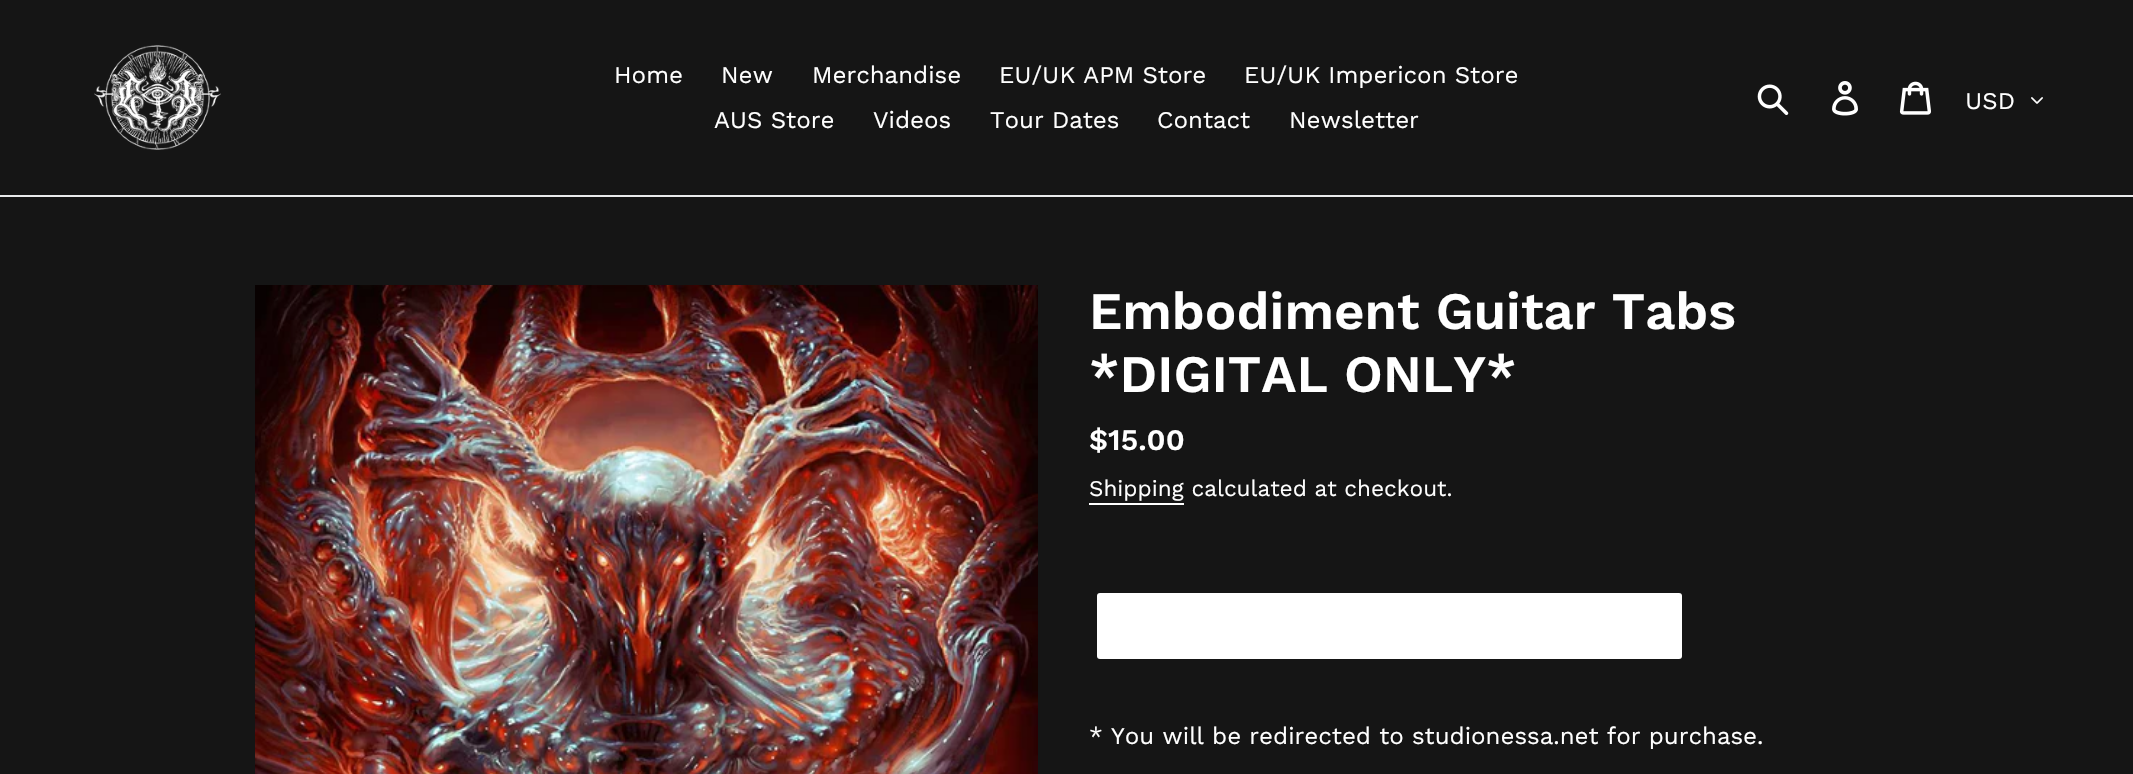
void draw(SkCanvas* c) {
SkPaint p;
p.setAntiAlias(true);
auto F=[&](const char* family, int weight, float size, bool italic = false){SkFontStyle style(weight, SkFontStyle::kNormal_Width,italic ? SkFontStyle::kItalic_Slant : SkFontStyle::kUpright_Slant);SkFont result(fontMgr->matchFamilyStyle(family, style), size);result.setSubpixel(true);return result;};
auto T=[&](const char* s, float x, float y, const SkFont& font){c->drawString(s, x, y, font, p);};
auto R=[&](float x, float y, float w, float h){c->drawRect(SkRect::MakeXYWH(x, y, w, h), p);};
auto Q=[&](float x, float y, float w, float h, float radius){c->drawRoundRect(SkRect::MakeXYWH(x, y, w, h), radius, radius, p);};
auto I=[&](const char* path, float x, float y, float w, float h){auto image = SkImages::DeferredFromEncodedData(SkData::MakeFromFileName(path));c->drawImageRect(image, SkRect::MakeXYWH(x, y, w, h), SkSamplingOptions());};
c->clear(0xff151515);
p.setColor(0xffe8e9eb);
R(0,195,2133,2);
I("1.png",94,45,127,105);
auto f1 = F("Work Sans",400,24);
p.setColor(0xffffffff);
T("Home",614,83,f1);
T("New",721,83,f1);
T("Merchandise",812,83,f1);
T("EU/UK APM Store",999,83,f1);
T("EU/UK Impericon Store",1244,83,f1);
T("AUS Store",714,128,f1);
T("Videos",873,128,f1);
T("Tour Dates",990,128,f1);
T("Contact",1157,128,f1);
T("Newsletter",1289,128,f1);
I("2.png",1757,84,32,32);
I("3.png",1832,81,26,35);
I("4.png",1899,81,32,34);
T("USD",1965,109,f1);
I("5.png",2031,97,12,7);
I("6.png",255,285,783,489);
auto f2 = F("Work Sans",600,52.5);
T("Embodiment Guitar Tabs",1089,329,f2);
T("*DIGITAL ONLY*",1089,392,f2);
auto f3 = F("Work Sans",600,30);
T("$15.00",1089,450,f3);
auto f4 = F("Work Sans",400,22.5);
T("Shipping calculated at checkout.",1089,496,f4);
R(1089,503,95,2);
Q(1097,593,585,66,3);
T("* You will be redirected to studionessa.net for purchase.",1089,744,f1);
}
